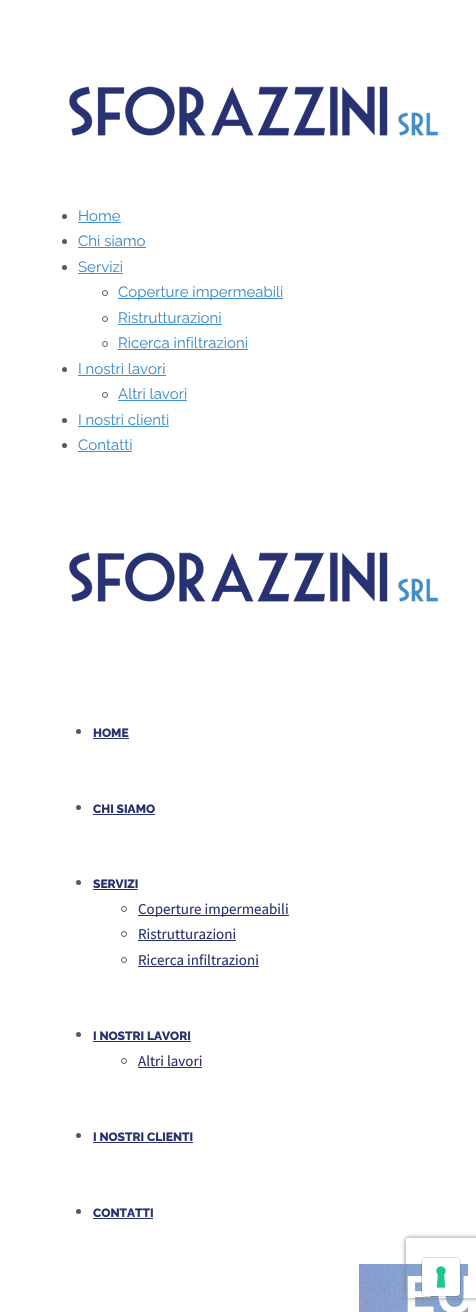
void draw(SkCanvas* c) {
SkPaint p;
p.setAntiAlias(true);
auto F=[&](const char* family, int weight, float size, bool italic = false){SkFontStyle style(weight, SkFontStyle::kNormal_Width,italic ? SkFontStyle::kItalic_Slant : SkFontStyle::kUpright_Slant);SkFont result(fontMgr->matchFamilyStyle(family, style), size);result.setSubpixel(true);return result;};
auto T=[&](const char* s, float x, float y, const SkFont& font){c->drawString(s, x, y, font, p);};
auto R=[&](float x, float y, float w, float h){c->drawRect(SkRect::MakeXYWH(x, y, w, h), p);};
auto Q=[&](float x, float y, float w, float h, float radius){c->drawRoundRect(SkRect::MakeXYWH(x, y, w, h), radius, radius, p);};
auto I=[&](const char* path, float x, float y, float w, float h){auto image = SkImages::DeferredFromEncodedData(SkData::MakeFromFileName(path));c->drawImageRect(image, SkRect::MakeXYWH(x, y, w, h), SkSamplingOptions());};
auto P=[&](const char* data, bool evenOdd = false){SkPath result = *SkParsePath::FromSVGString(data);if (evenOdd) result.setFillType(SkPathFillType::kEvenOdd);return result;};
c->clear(0xffffffff);
I("1.png",69,86,369,50);
p.setColor(0xff595959);
c->drawCircle(64.5,216.5,2.5,p);
auto f1 = F("Raleway",400,15);
p.setColor(0xff428ecc);
T("Home",78,221,f1);
R(78,222,43,1);
p.setColor(0xff595959);
c->drawCircle(64.5,241.5,2.5,p);
p.setColor(0xff428ecc);
T("Chi siamo",78,246,f1);
R(78,247,68,1);
p.setColor(0xff595959);
c->drawCircle(64.5,267.5,2.5,p);
p.setColor(0xff428ecc);
T("Servizi",78,272,f1);
R(78,273,45,1);
p.setStroke(true);
p.setStrokeWidth(1);
p.setColor(0xff595959);
c->drawCircle(105,293,2.5,p);
p.setStroke(false);
p.setColor(0xff428ecc);
R(118,298,165,1);
T("Coperture impermeabili",118,297,f1);
p.setStroke(true);
p.setColor(0xff595959);
c->drawCircle(105,319,2.5,p);
p.setStroke(false);
p.setColor(0xff428ecc);
T("Ristrutturazioni",118,323,f1);
R(118,324,104,1);
p.setStroke(true);
p.setColor(0xff595959);
c->drawCircle(105,344,2.5,p);
p.setStroke(false);
p.setColor(0xff428ecc);
T("Ricerca infiltrazioni",118,348,f1);
R(118,349,130,1);
p.setColor(0xff595959);
c->drawCircle(64.5,369.5,2.5,p);
p.setColor(0xff428ecc);
T("I nostri lavori",78,374,f1);
R(78,375,88,1);
p.setStroke(true);
p.setColor(0xff595959);
c->drawCircle(105,395,2.5,p);
p.setStroke(false);
p.setColor(0xff428ecc);
T("Altri lavori",118,399,f1);
R(118,400,69,1);
p.setColor(0xff595959);
c->drawCircle(64.5,420.5,2.5,p);
p.setColor(0xff428ecc);
T("I nostri clienti",78,425,f1);
R(78,426,91,1);
p.setColor(0xff595959);
c->drawCircle(64.5,445.5,2.5,p);
p.setColor(0xff428ecc);
T("Contatti",78,450,f1);
R(78,451,54,1);
I("1.png",69,552,369,50);
p.setColor(0xff595959);
c->drawCircle(78.5,731.5,2.5,p);
auto f2 = F("Raleway",800,12);
p.setColor(0xff283171);
T("HOME",93,737,f2);
R(93,738,36,1);
p.setColor(0xff595959);
c->drawCircle(78.5,807.5,2.5,p);
p.setColor(0xff283171);
T("CHI SIAMO",93,813,f2);
R(93,814,62,1);
p.setColor(0xff595959);
c->drawCircle(78.5,882.5,2.5,p);
p.setColor(0xff283171);
T("SERVIZI",93,888,f2);
R(93,889,45,1);
p.setStroke(true);
p.setColor(0xff595959);
c->drawCircle(124,909,2.5,p);
p.setStroke(false);
p.setColor(0xff283171);
R(138,915,151,1);
auto f3 = F("Source Sans Pro",400,15);
T("Coperture impermeabili",138,914,f3);
p.setStroke(true);
p.setColor(0xff595959);
c->drawCircle(124,934,2.5,p);
p.setStroke(false);
p.setColor(0xff283171);
T("Ristrutturazioni",138,939,f3);
R(138,940,98,1);
p.setStroke(true);
p.setColor(0xff595959);
c->drawCircle(124,960,2.5,p);
p.setStroke(false);
p.setColor(0xff283171);
T("Ricerca infiltrazioni",138,965,f3);
R(138,966,121,1);
p.setColor(0xff595959);
c->drawCircle(78.5,1034.5,2.5,p);
p.setColor(0xff283171);
T("I NOSTRI LAVORI",93,1040,f2);
R(93,1041,98,1);
p.setStroke(true);
p.setColor(0xff595959);
c->drawCircle(124,1061,2.5,p);
p.setStroke(false);
p.setColor(0xff283171);
T("Altri lavori",138,1066,f3);
R(138,1067,64,1);
p.setColor(0xff595959);
c->drawCircle(78.5,1135.5,2.5,p);
p.setColor(0xff283171);
T("I NOSTRI CLIENTI",93,1141,f2);
R(93,1142,100,1);
p.setColor(0xff595959);
c->drawCircle(78.5,1211.5,2.5,p);
p.setColor(0xff283171);
T("CONTATTI",93,1217,f2);
R(93,1218,60,1);
I("2.png",359,1264,109,48);
auto f4 = F("Raleway",700,52);
p.setColor(0xffffffff);
T("EU",404,1313,f4);
c->save();
c->clipPath(P("M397 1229h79v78h-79zm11 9h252c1 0 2 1 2 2v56c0 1-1 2-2 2h-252c-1 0-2-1-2-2v-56c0-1 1-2 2-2z",true),true);
p.setColor(0xff808080);
p.setMaskFilter(SkMaskFilter::MakeBlur(kNormal_SkBlurStyle, 2.5));
c->drawRoundRect(SkRect::MakeXYWH(406,1238,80,60),2,2,p);
p.setMaskFilter(nullptr);
c->restore();
p.setStroke(true);
p.setColor(0x26000000);
c->drawRoundRect(SkRect::MakeXYWH(421.5,1257.5,39,39),4.5,4.5,p);
p.setStroke(false);
p.setColor(0xffffffff);
Q(422,1258,38,38,4);
I("3.png",436,1266,10,22);
}
